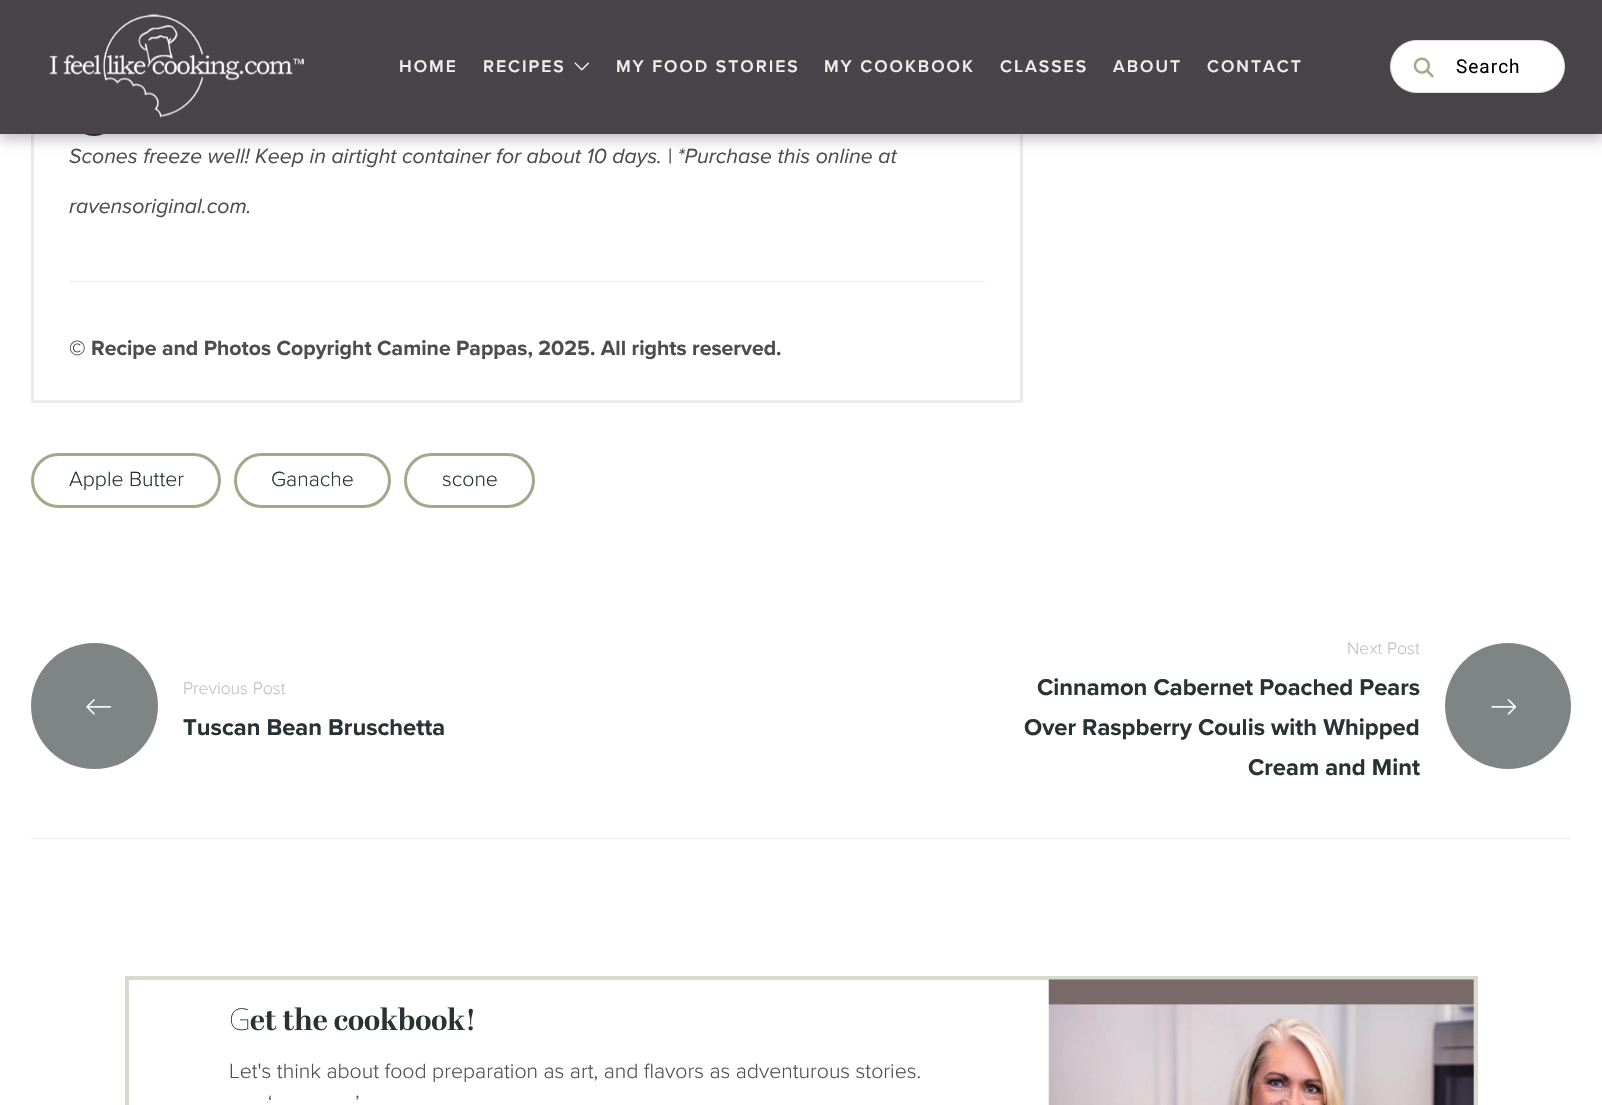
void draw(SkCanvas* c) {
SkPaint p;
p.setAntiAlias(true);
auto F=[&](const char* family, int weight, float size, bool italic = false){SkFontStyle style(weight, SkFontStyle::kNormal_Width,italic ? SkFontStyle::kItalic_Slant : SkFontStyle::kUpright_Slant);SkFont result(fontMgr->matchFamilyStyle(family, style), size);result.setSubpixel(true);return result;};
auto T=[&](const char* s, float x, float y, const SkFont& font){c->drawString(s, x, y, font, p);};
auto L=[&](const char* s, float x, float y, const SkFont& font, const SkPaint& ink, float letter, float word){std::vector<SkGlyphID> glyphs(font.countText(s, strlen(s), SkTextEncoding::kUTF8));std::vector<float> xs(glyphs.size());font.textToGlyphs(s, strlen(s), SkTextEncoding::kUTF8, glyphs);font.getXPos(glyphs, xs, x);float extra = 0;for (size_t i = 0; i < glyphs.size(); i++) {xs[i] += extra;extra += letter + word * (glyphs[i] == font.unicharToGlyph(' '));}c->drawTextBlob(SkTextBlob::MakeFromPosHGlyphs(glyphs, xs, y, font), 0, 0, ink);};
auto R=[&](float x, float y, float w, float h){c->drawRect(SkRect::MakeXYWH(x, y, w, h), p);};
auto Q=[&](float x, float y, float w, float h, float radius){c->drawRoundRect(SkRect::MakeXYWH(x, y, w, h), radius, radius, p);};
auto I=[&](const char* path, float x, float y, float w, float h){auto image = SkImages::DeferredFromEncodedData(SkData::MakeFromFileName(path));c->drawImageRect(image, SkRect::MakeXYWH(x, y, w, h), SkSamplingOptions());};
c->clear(0xffffffff);
p.setStroke(true);
p.setStrokeWidth(3);
p.setColor(0xffebebeb);
c->drawRect(SkRect::MakeXYWH(32.5,-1.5,989,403),p);
p.setStroke(false);
p.setColor(0xff293333);
c->drawCircle(94,111,25,p);
p.setColor(0x3b000000);
p.setMaskFilter(SkMaskFilter::MakeBlur(kNormal_SkBlurStyle, 6));
c->drawRect(SkRect::MakeXYWH(0,6,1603,134),p);
p.setMaskFilter(nullptr);
p.setColor(0xff494449);
R(0,0,1602,134);
I("1.png",49,14,255,104);
auto f1 = F("Proxima Nova",600,17.5);
p.setColor(0xffeeefeb);
L("HOME",399,72,f1,p,2,0);
L("RECIPES",483,72,f1,p,2,0);
I("2.png",574,62,15,9);
L("MY FOOD STORIES",616,72,f1,p,2,0);
L("MY COOKBOOK",824,72,f1,p,2,0);
L("CLASSES",1000,72,f1,p,2,0);
L("ABOUT",1113,72,f1,p,2,0);
L("CONTACT",1207,72,f1,p,2,0);
p.setColor(0xffffffff);
c->drawRoundRect(SkRect::MakeXYWH(1390.5,40.5,174,52),26,26,p);
p.setStroke(true);
p.setStrokeWidth(1);
p.setColor(0xffe0e0e0);
c->drawRoundRect(SkRect::MakeXYWH(1390.5,40.5,174,52),26,26,p);
I("3.png",1413,57,21,21);
auto f2 = F("Roboto",400,19);
p.setStroke(false);
p.setColor(0xff000000);
L("Search",1456,73,f2,p,1,0);
auto f3 = F("Proxima Nova",400,21.25,true);
p.setColor(0xff4d4d4d);
T("Scones freeze well! Keep in airtight container for about 10 days. | *Purchase this online at",69,163,f3);
T("ravensoriginal.com.",69,213,f3);
p.setColor(0xffeeeeee);
R(69,281,916,1);
auto f4 = F("Proxima Nova",700,21.25);
p.setColor(0xff4d4d4d);
T("© Recipe and Photos Copyright Camine Pappas, 2025. All rights reserved.",69,355,f4);
p.setStroke(true);
p.setStrokeWidth(3);
p.setColor(0xffa0aa8b);
c->drawRoundRect(SkRect::MakeXYWH(32.5,454.5,187,52),26,26,p);
auto f5 = F("Proxima Nova",300,21.25);
p.setStroke(false);
p.setColor(0xff293333);
T("Apple Butter",69,486,f5);
p.setStroke(true);
p.setColor(0xffa0aa8b);
c->drawRoundRect(SkRect::MakeXYWH(235.5,454.5,154,52),26,26,p);
p.setStroke(false);
p.setColor(0xff293333);
T("Ganache",271,486,f5);
p.setStroke(true);
p.setColor(0xffa0aa8b);
c->drawRoundRect(SkRect::MakeXYWH(405.5,454.5,128,52),26,26,p);
p.setStroke(false);
p.setColor(0xff293333);
T("scone",442,486,f5);
p.setColor(0xff7f8585);
Q(31,643,127,126,63);
I("4.png",86,699,26,16);
auto f6 = F("Proxima Nova",300,17.5);
p.setColor(0xffbfbfbf);
T("Previous Post",183,694,f6);
auto f7 = F("Proxima Nova",700,23.75);
p.setColor(0xff293333);
T("Tuscan Bean Bruschetta",183,735,f7);
p.setColor(0xffbfbfbf);
T("Next Post",1347,654,f6);
p.setColor(0xff293333);
T("Cinnamon Cabernet Poached Pears",1037,695,f7);
T("Over Raspberry Coulis with Whipped",1024,735,f7);
T("Cream and Mint",1248,775,f7);
p.setColor(0xff7f8585);
c->drawCircle(1508,706,63,p);
I("5.png",1491,699,26,16);
p.setColor(0xffeeeeee);
R(31,838,1540,1);
p.setStroke(true);
p.setStrokeWidth(4);
p.setColor(0xffd7dbce);
c->drawRect(SkRect::MakeXYWH(127,978,1349,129),p);
auto f8 = F("Noto Sans",100,30);
p.setStroke(false);
p.setColor(0xff293333);
T("G",229,1030,f8);
auto f9 = F("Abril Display",700,30);
T("et the cookbook!",250,1030,f9);
p.setColor(0xff4d4d4d);
T("Let's think about food preparation as art, and flavors as adventurous stories.",229,1078,f5);
T("‘",268,1110,f5);
T("’",355,1110,f5);
I("6.png",1048,979,426,126);
}
